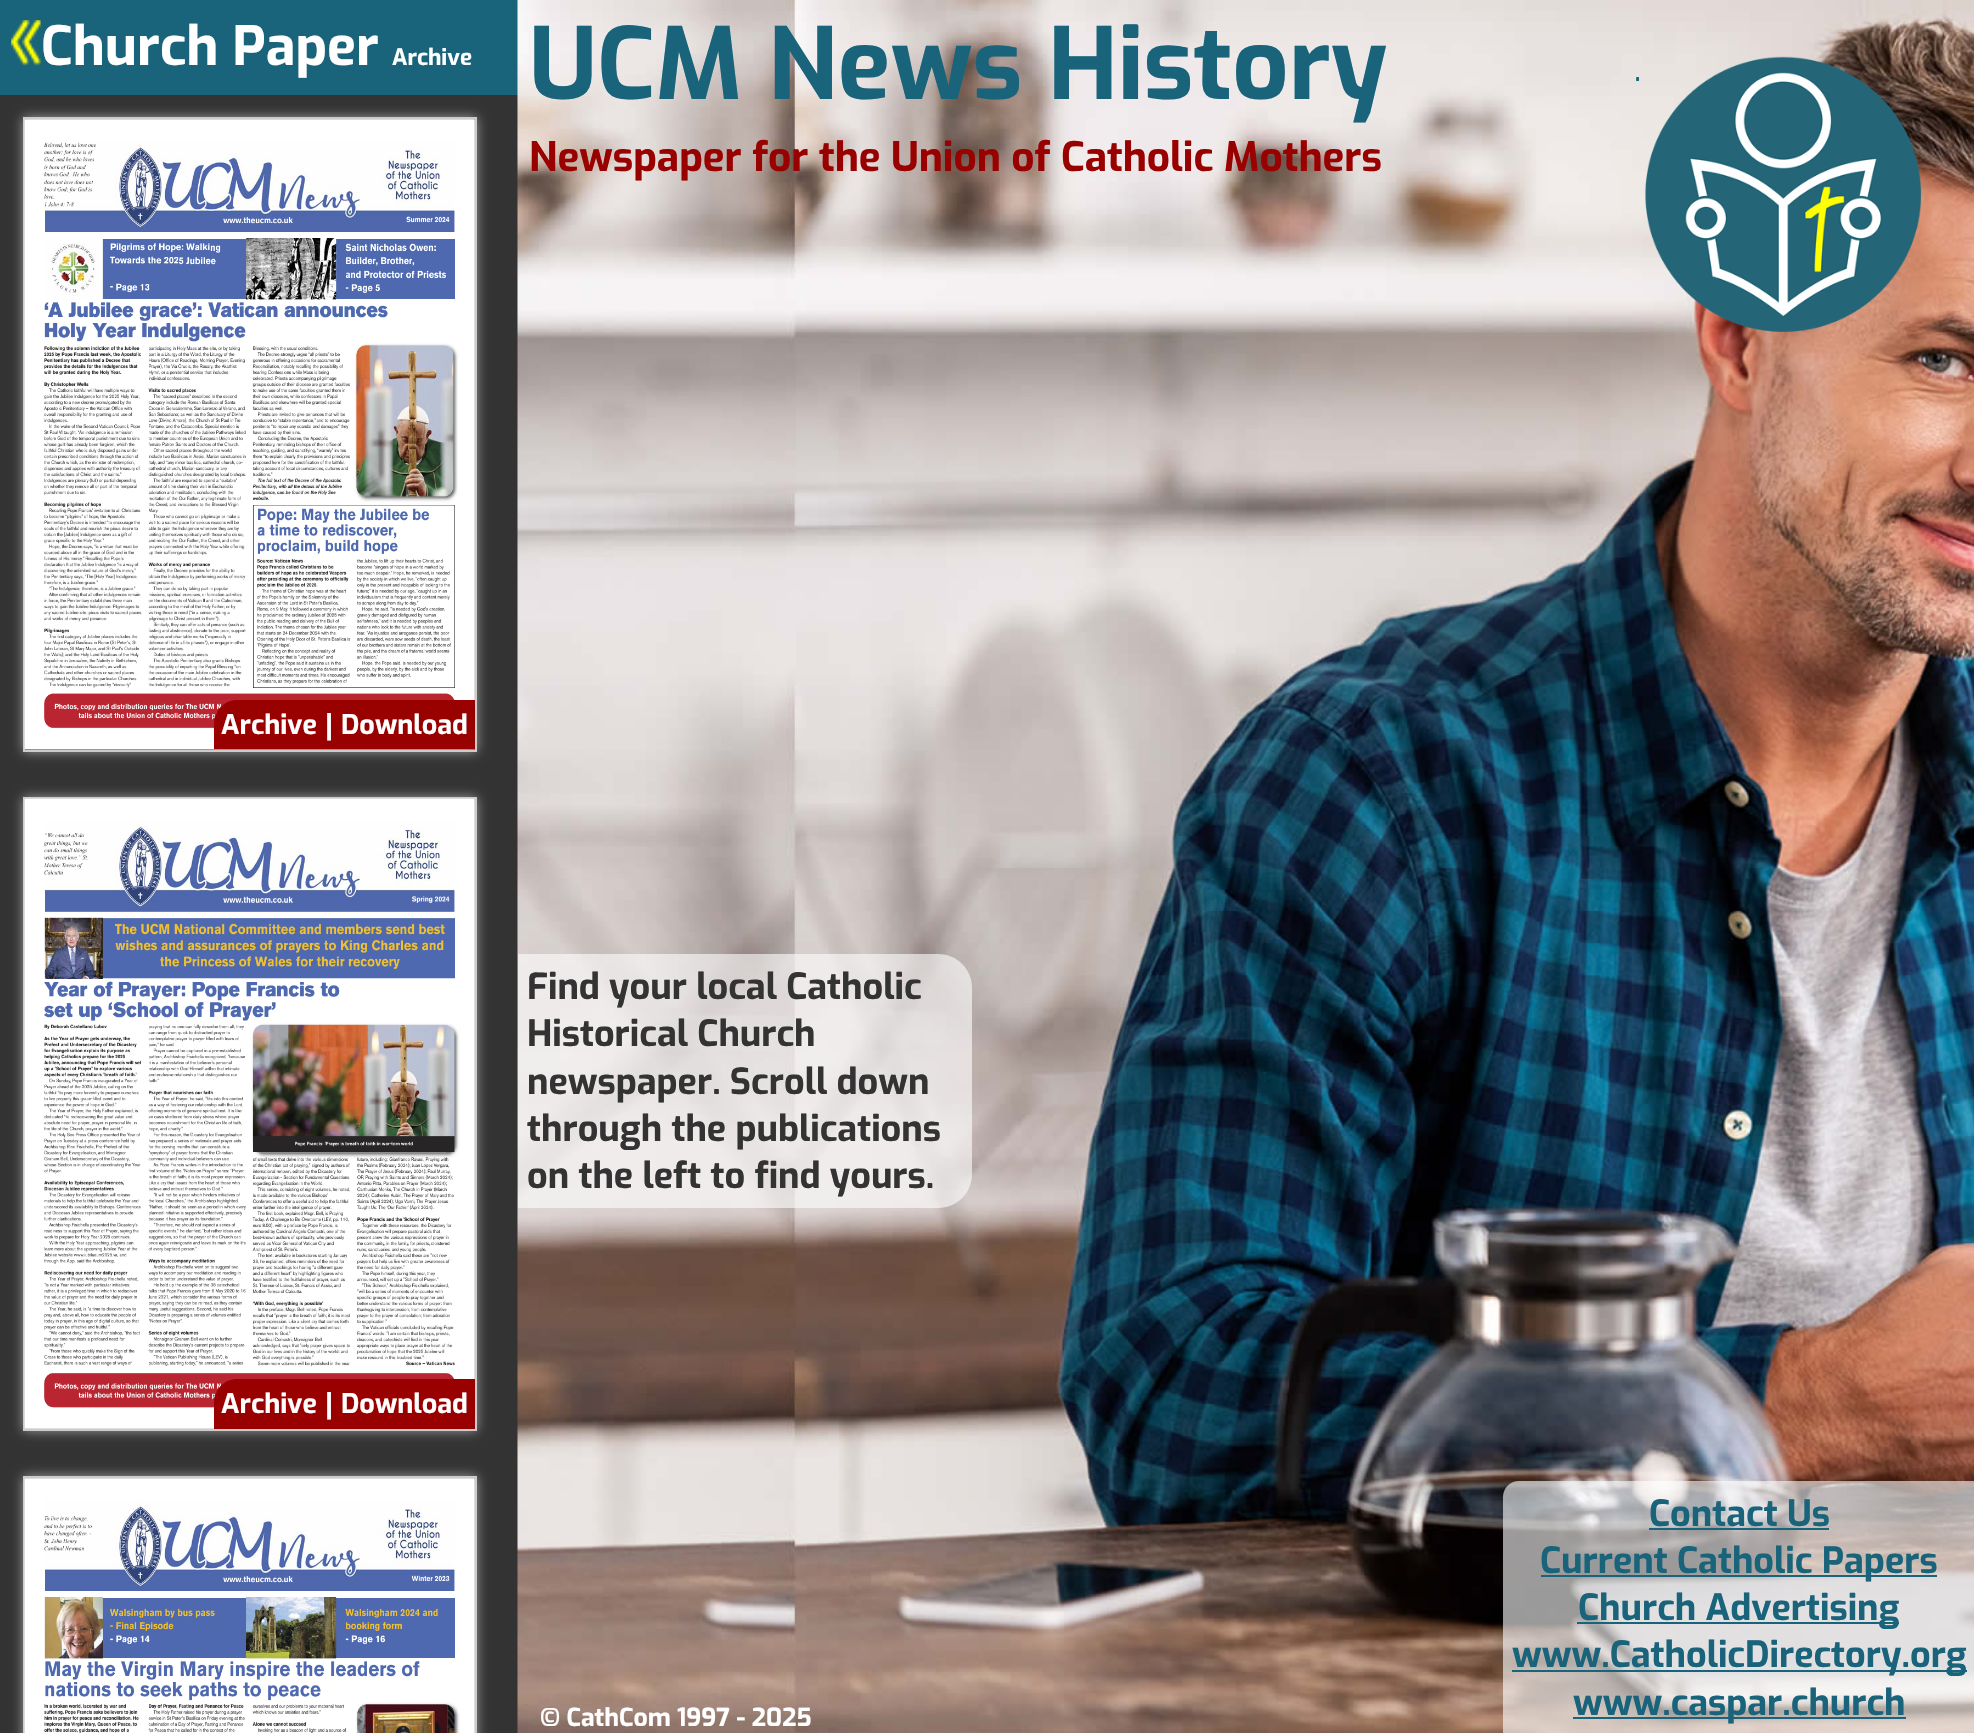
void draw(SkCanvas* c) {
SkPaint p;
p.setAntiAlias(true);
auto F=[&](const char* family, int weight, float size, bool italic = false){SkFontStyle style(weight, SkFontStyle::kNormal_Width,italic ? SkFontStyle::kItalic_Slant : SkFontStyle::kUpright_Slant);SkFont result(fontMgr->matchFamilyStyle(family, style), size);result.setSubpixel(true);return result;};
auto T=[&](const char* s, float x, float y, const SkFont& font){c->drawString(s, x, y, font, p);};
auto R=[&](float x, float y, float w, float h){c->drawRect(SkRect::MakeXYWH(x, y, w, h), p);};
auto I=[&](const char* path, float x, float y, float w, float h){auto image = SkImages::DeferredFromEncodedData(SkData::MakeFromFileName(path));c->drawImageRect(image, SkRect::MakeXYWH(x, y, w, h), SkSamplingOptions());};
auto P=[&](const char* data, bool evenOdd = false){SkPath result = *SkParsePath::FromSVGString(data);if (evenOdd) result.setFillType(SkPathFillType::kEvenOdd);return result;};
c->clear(0xff19637b);
I("1.png",11,20,30,46);
auto f1 = F("Exo",700,54);
p.setColor(0xffffffff);
T("Church Paper",41,65,f1);
auto f2 = F("Exo",700,22.5);
T("Archive",392,65,f2);
p.setColor(0xff333333);
R(0,95,518,1638);
p.setColor(0xff999999);
p.setMaskFilter(SkMaskFilter::MakeBlur(kNormal_SkBlurStyle, 5.5));
c->drawRect(SkRect::MakeXYWH(23,117,454,635),p);
p.setMaskFilter(nullptr);
p.setStroke(true);
p.setStrokeWidth(2);
p.setColor(0xffcccccc);
c->drawRect(SkRect::MakeXYWH(24,118,452,633),p);
I("2.png",24,119,451,631);
p.setStroke(false);
p.setColor(0xff990000);
c->drawPath(P("M237 700h238v49h-261v-26c0-12.5 10.5-23 23-23z"),p);
auto f3 = F("Exo",700,27);
p.setColor(0xffffffff);
T("Archive",221,734,f3);
auto f4 = F("Liberation Sans",700,29);
T("|",325,734,f4);
T("Download",341,734,f3);
p.setColor(0xff999999);
p.setMaskFilter(SkMaskFilter::MakeBlur(kNormal_SkBlurStyle, 5.5));
c->drawRect(SkRect::MakeXYWH(23,797,454,634),p);
p.setMaskFilter(nullptr);
p.setStroke(true);
p.setColor(0xffcccccc);
c->drawRect(SkRect::MakeXYWH(24,798,452,632),p);
I("3.png",24,798,451,631);
p.setStroke(false);
p.setColor(0xff990000);
c->drawPath(P("M237 1379h238v50h-261v-27c0-12.5 10.5-23 23-23z"),p);
p.setColor(0xffffffff);
T("Archive",221,1413,f3);
T("|",325,1413,f4);
T("Download",341,1413,f3);
p.setColor(0xff999999);
p.setMaskFilter(SkMaskFilter::MakeBlur(kNormal_SkBlurStyle, 5.5));
c->drawRect(SkRect::MakeXYWH(23,1476,454,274),p);
p.setMaskFilter(nullptr);
p.setStroke(true);
p.setColor(0xffcccccc);
c->drawRect(SkRect::MakeXYWH(24,1477,452,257),p);
I("4.png",24,1478,451,255);
I("5.png",517,0,1457,1733);
auto f5 = F("Exo",700,99);
p.setStroke(false);
p.setColor(0xff19637b);
T("UCM News History",529,99,f5);
auto f6 = F("Exo",700,40.5);
p.setColor(0xff990000);
T("Newspaper for the Union of Catholic Mothers",529,171,f6);
I("6.png",1645,56,277,276);
auto f7 = F("Exo",400,36);
p.setColor(0xff19637b);
T(".",1634,81,f7);
p.setColor(0x99ffffff);
c->drawPath(P("M518 954h420c19 0 34 15 34 34v186c0 19-15 34-34 34h-420z"),p);
auto f8 = F("Exo",700,36);
p.setColor(0xff333333);
T("Find your local Catholic",527,999,f8);
T("Historical Church",527,1046,f8);
T("newspaper. Scroll down",527,1094,f8);
T("through the publications",527,1141,f8);
T("on the left to find yours.",527,1188,f8);
auto f9 = F("Exo",700,24.75);
p.setColor(0xffffffff);
T("© CathCom 1997 - 2025",540,1726,f9);
p.setColor(0x99ffffff);
c->drawPath(P("M1519 1481h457v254h-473v-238c0-9 7-16 16-16z"),p);
p.setColor(0xff19637b);
T("Contact Us",1649,1526,f8);
R(1649,1528,180,2);
R(1541,1575,396,2);
T("Current Catholic Papers",1540,1573,f8);
R(1577,1622,322,2);
T("Church Advertising",1578,1620,f8);
R(1512,1670,455,2);
T("www.CatholicDirectory.org",1512,1667,f8);
R(1573,1717,333,2);
T("www.caspar.church",1573,1715,f8);
}
